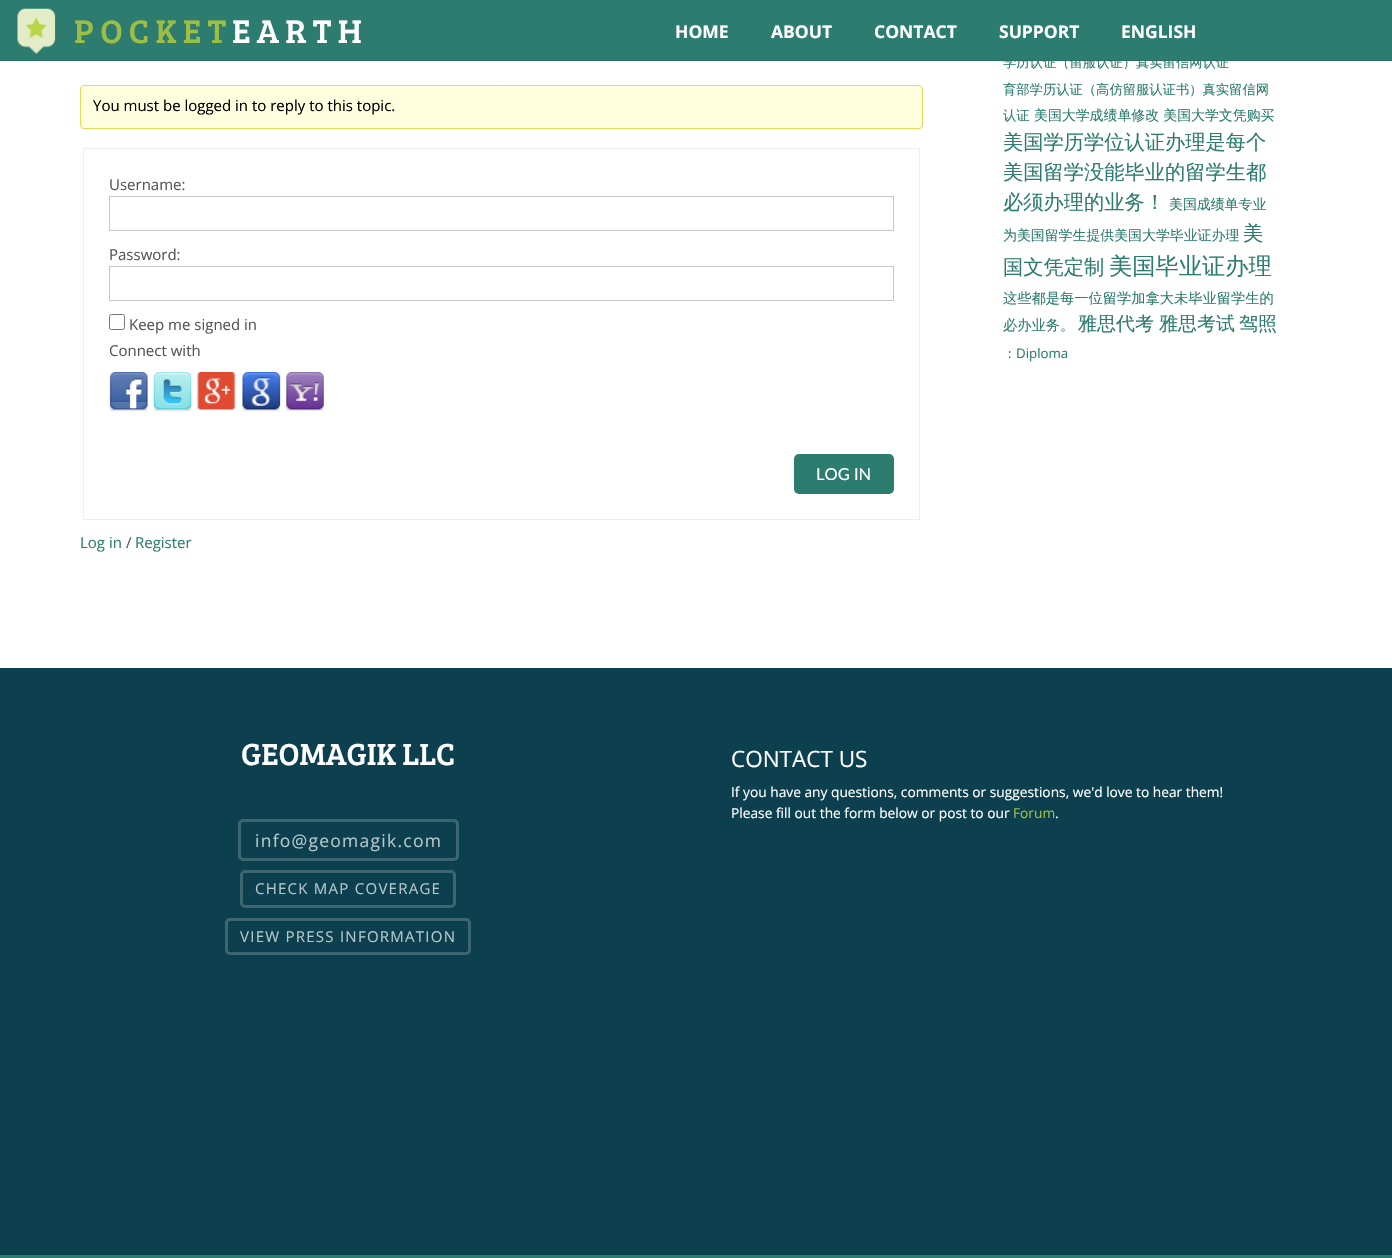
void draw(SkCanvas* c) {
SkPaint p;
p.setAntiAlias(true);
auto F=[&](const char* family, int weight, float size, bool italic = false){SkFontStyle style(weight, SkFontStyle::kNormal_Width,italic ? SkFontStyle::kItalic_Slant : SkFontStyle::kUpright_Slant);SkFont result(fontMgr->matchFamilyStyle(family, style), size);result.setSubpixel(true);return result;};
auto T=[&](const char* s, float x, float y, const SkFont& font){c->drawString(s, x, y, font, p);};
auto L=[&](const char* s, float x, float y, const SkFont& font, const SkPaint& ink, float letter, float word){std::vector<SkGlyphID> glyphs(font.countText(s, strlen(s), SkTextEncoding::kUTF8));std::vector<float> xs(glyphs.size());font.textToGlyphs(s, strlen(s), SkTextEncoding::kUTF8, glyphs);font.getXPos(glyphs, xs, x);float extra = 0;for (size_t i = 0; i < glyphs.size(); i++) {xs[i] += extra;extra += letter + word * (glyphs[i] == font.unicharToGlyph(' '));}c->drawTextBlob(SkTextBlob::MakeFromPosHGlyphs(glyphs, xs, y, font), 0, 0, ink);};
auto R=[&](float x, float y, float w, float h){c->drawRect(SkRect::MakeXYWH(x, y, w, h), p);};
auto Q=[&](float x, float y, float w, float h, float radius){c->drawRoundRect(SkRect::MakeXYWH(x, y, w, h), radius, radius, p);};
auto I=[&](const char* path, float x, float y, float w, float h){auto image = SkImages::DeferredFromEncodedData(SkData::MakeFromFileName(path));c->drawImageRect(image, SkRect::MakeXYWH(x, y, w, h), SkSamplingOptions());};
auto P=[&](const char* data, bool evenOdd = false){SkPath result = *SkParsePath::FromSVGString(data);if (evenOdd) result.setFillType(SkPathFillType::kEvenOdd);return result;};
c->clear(0xffffffff);
p.setColor(0x1affffff);
c->drawPath(P("M0 61v2h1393v-62h-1v60z"),p);
p.setColor(0xff2c7d6f);
R(0,0,1392,60);
auto f1 = F("WenQuanYi Zen Hei",500,13.3);
T("学历认证（留服认证）真实留信网认证",1003,67,f1);
p.setColor(0xff287164);
R(0,60,1392,1);
I("1.png",17,8,39,46);
auto f2 = F("Bree Serif",400,33.75);
p.setColor(0xff9ebd44);
L("POCKET",74,43,f2,p,6.25,0);
p.setColor(0xffffffff);
L("EARTH",232,43,f2,p,6.25,0);
auto f3 = F("Open Sans",700,17.5);
T("HOME",675,38,f3);
T("ABOUT",771,38,f3);
T("CONTACT",874,38,f3);
T("SUPPORT",999,38,f3);
T("ENGLISH",1121,38,f3);
p.setColor(0xffffffe0);
c->drawRoundRect(SkRect::MakeXYWH(80.5,85.5,842,43),3.5,3.5,p);
p.setStroke(true);
p.setStrokeWidth(1);
p.setColor(0xffe6db55);
c->drawRoundRect(SkRect::MakeXYWH(80.5,85.5,842,43),3.5,3.5,p);
auto f4 = F("Open Sans",400,15);
p.setStroke(false);
p.setColor(0xff000000);
T("You must be logged in to reply to this topic.",93,111,f4);
p.setStroke(true);
p.setColor(0xffeeeeee);
c->drawRect(SkRect::MakeXYWH(83.5,148.5,836,371),p);
p.setStroke(false);
p.setColor(0xff555555);
T("Username:",109,190,f4);
p.setStroke(true);
p.setColor(0xffc8c8c8);
c->drawRect(SkRect::MakeXYWH(109.5,196.5,784,34),p);
p.setStroke(false);
p.setColor(0xff555555);
T("Password:",109,260,f4);
p.setStroke(true);
p.setColor(0xffc8c8c8);
c->drawRect(SkRect::MakeXYWH(109.5,266.5,784,34),p);
p.setColor(0xff767676);
c->drawRoundRect(SkRect::MakeXYWH(109.5,314.5,15,15),2,2,p);
p.setStroke(false);
p.setColor(0xff555555);
T("Keep me signed in",129,330,f4);
T("Connect with",109,356,f4);
I("2.png",109,372,39,40);
I("3.png",153,372,39,40);
I("4.png",197,372,39,38);
I("5.png",242,372,39,40);
I("6.png",286,372,38,40);
p.setColor(0xff2c7d6f);
Q(794,454,100,40,5);
auto f5 = F("Lato",400,16.5);
p.setColor(0xffffffff);
T("LOG IN",816,480,f5);
p.setColor(0xff2c7d6f);
T("Log in",80,548,f4);
p.setColor(0xff555555);
T("/",126,548,f4);
p.setColor(0xff2c7d6f);
T("Register",135,548,f4);
T("育部学历认证（高仿留服认证书）真实留信网",1003,94,f1);
T("认证",1003,120,f1);
auto f6 = F("WenQuanYi Zen Hei",500,13.9);
T("美国大学成绩单修改 美国大学文凭购买",1034,120,f6);
auto f7 = F("WenQuanYi Zen Hei",500,20.25);
T("美国学历学位认证办理是每个",1003,149,f7);
T("美国留学没能毕业的留学生都",1003,179,f7);
T("必须办理的业务！",1003,209,f7);
T("美国成绩单专业",1169,209,f6);
T("为美国留学生提供美国大学毕业证办理",1003,240,f6);
T("美",1243,240,f7);
T("国文凭定制",1003,274,f7);
auto f8 = F("WenQuanYi Zen Hei",500,23.25);
T("美国毕业证办理",1109,274,f8);
auto f9 = F("WenQuanYi Zen Hei",500,14.25);
T("这些都是每一位留学加拿大未毕业留学生的",1003,303,f9);
T("必办业务。",1003,330,f9);
auto f10 = F("WenQuanYi Zen Hei",500,19);
T("雅思代考",1078,330,f10);
T("雅思考试",1159,330,f10);
T("驾照",1239,330,f10);
T("：",1003,358,f1);
auto f11 = F("Open Sans",400,13.3);
T("Diploma",1016,358,f11);
p.setColor(0xff0c404e);
R(0,668,1392,587);
auto f12 = F("Bree Serif",400,31.5);
p.setColor(0xffffffff);
T("GEOMAGIK LLC",241,765,f12);
p.setStroke(true);
p.setStrokeWidth(3);
p.setColor(0xff3d6671);
c->drawRoundRect(SkRect::MakeXYWH(239.5,820.5,218,39),3.5,3.5,p);
auto f13 = F("Open Sans",400,17.5);
p.setStroke(false);
p.setColor(0xffb6c6ca);
L("info@geomagik.com",255,847,f13,p,1.25,0);
p.setStroke(true);
p.setColor(0xff3d6671);
c->drawRoundRect(SkRect::MakeXYWH(241.5,871.5,213,35),3.5,3.5,p);
p.setStroke(false);
p.setColor(0xffb6c6ca);
L("CHECK MAP COVERAGE",255,894,f4,p,1.25,0);
p.setStroke(true);
p.setColor(0xff3d6671);
c->drawRoundRect(SkRect::MakeXYWH(226.5,919.5,243,34),3.5,3.5,p);
p.setStroke(false);
p.setColor(0xffb6c6ca);
L("VIEW PRESS INFORMATION",240,942,f4,p,1.25,0);
auto f14 = F("Open Sans",400,22.5);
p.setColor(0xffffffff);
T("CONTACT US",731,767,f14);
auto f15 = F("Open Sans",400,13.75);
T("If you have any questions, comments or suggestions, we'd love to hear them!",731,797,f15);
T("Please fill out the form below or post to our",731,818,f15);
p.setColor(0xff9ebd44);
T("Forum",1013,818,f15);
p.setColor(0xffffffff);
T(".",1055,818,f15);
p.setColor(0xff2c7d6f);
R(0,1255,1392,3);
}
